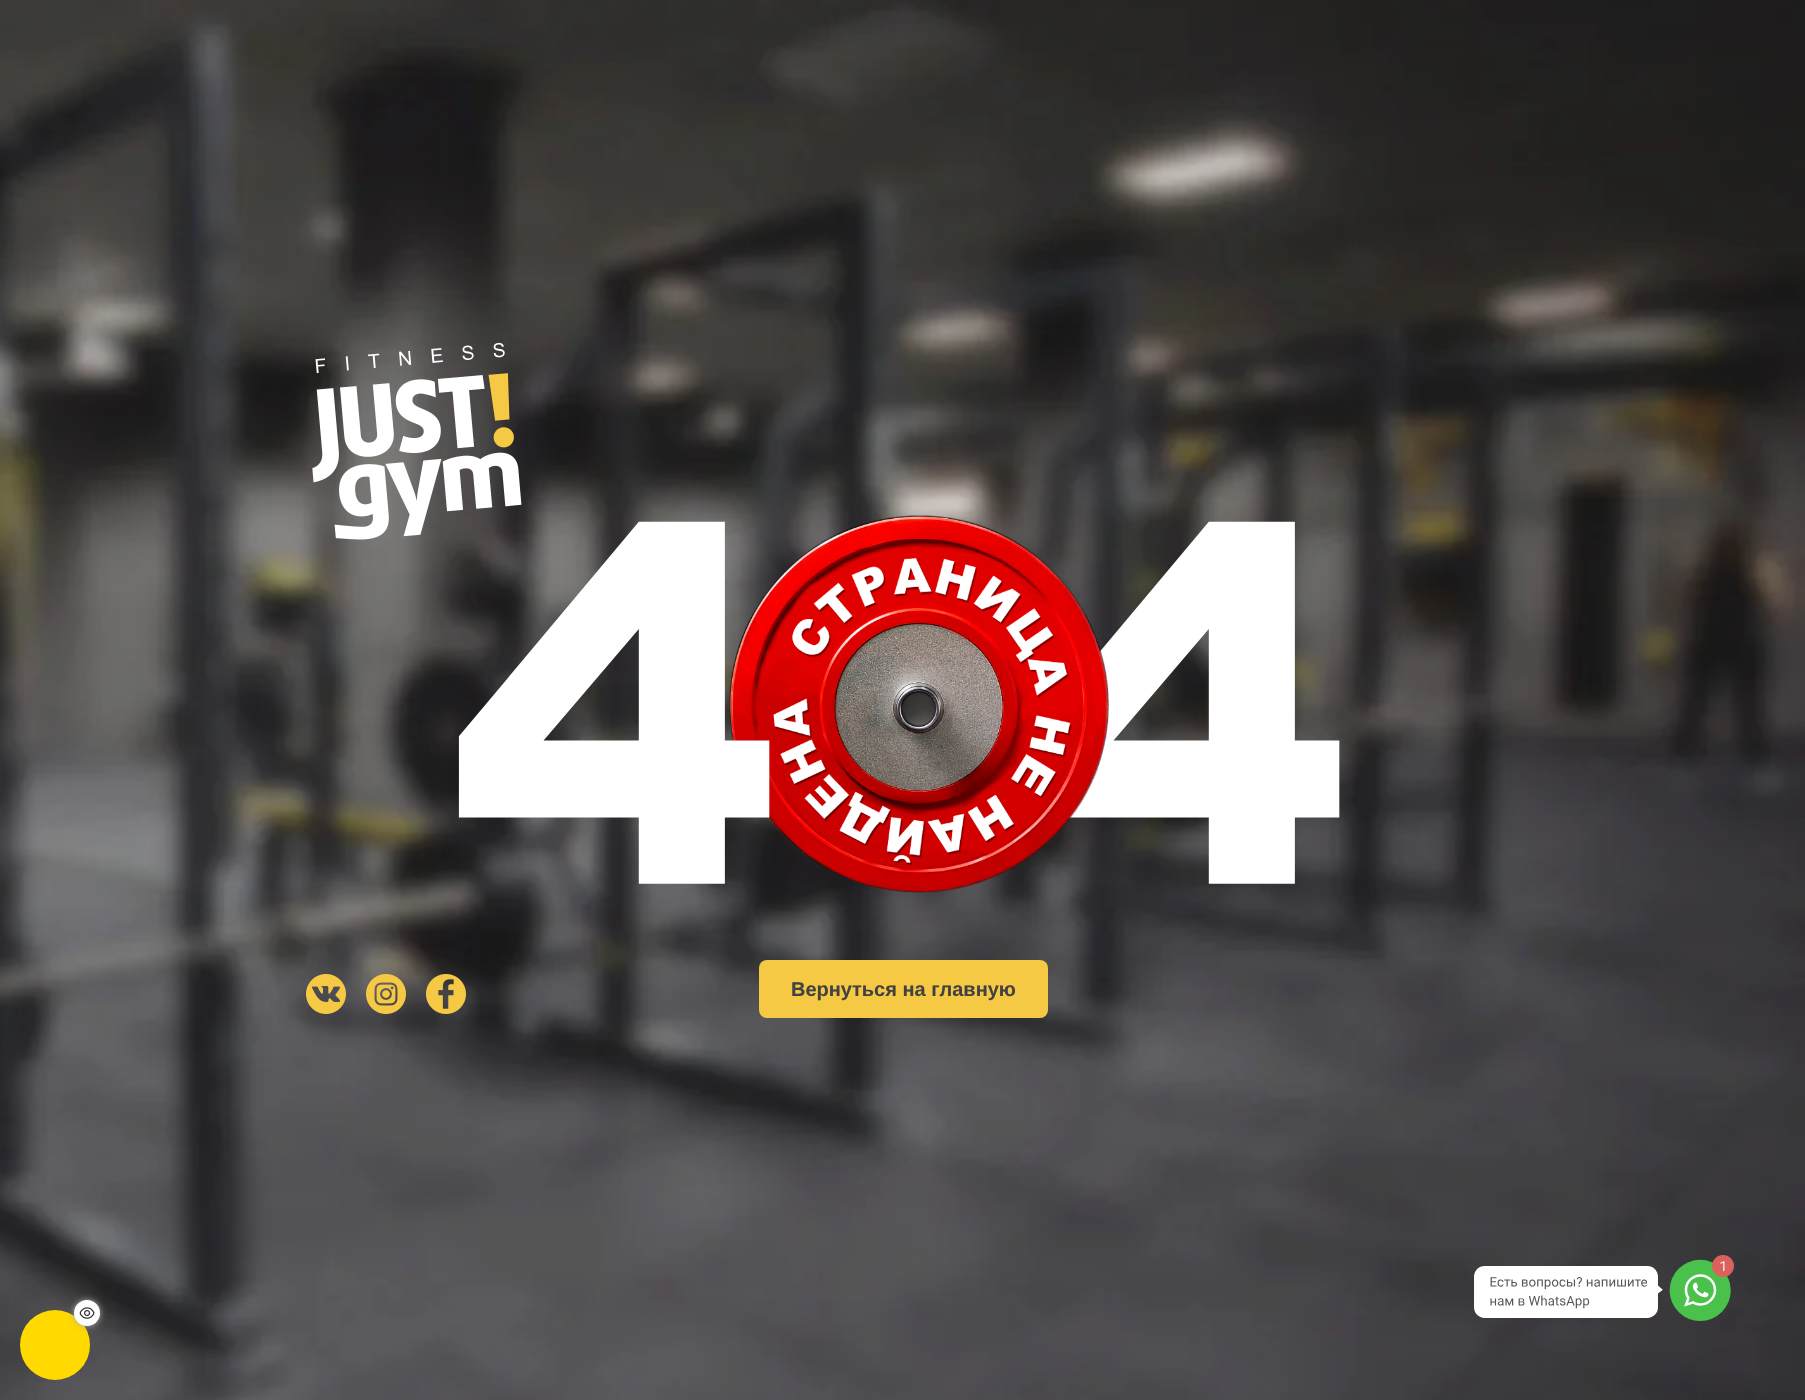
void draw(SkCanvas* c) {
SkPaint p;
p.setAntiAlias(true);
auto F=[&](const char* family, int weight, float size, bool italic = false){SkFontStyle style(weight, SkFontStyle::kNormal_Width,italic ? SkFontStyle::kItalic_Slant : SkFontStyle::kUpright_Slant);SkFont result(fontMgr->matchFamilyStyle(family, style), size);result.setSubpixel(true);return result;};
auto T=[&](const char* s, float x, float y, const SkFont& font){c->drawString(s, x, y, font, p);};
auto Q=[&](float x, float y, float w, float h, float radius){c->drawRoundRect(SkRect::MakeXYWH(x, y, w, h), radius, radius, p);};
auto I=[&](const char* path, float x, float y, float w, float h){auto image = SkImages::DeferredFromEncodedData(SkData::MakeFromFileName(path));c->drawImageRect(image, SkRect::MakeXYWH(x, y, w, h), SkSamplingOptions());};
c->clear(0xffffffff);
I("1.png",0,0,1805,1400);
I("2.png",312,342,210,198);
I("5.png",1066,521,274,363);
I("4.png",729,515,380,378);
I("3.png",458,521,312,363);
I("6.png",306,974,40,40);
I("7.png",366,974,40,40);
I("8.png",426,974,40,40);
p.setColor(0xfff5c944);
Q(759,960,289,58,8);
auto f1 = F("Liberation Sans",700,20);
p.setColor(0xff434242);
T("Вернуться на главную",791,996,f1);
p.setColor(0xffffd900);
c->drawCircle(55,1345,35,p);
p.setColor(0xffaaaaaa);
p.setMaskFilter(SkMaskFilter::MakeBlur(kNormal_SkBlurStyle, 3));
c->drawRoundRect(SkRect::MakeXYWH(74,1300,26,26),13,13,p);
p.setMaskFilter(nullptr);
p.setColor(0xffffffff);
c->drawCircle(87,1313,13,p);
I("9.png",79,1307,16,12);
I("10.png",1474,1255,260,66);
}
